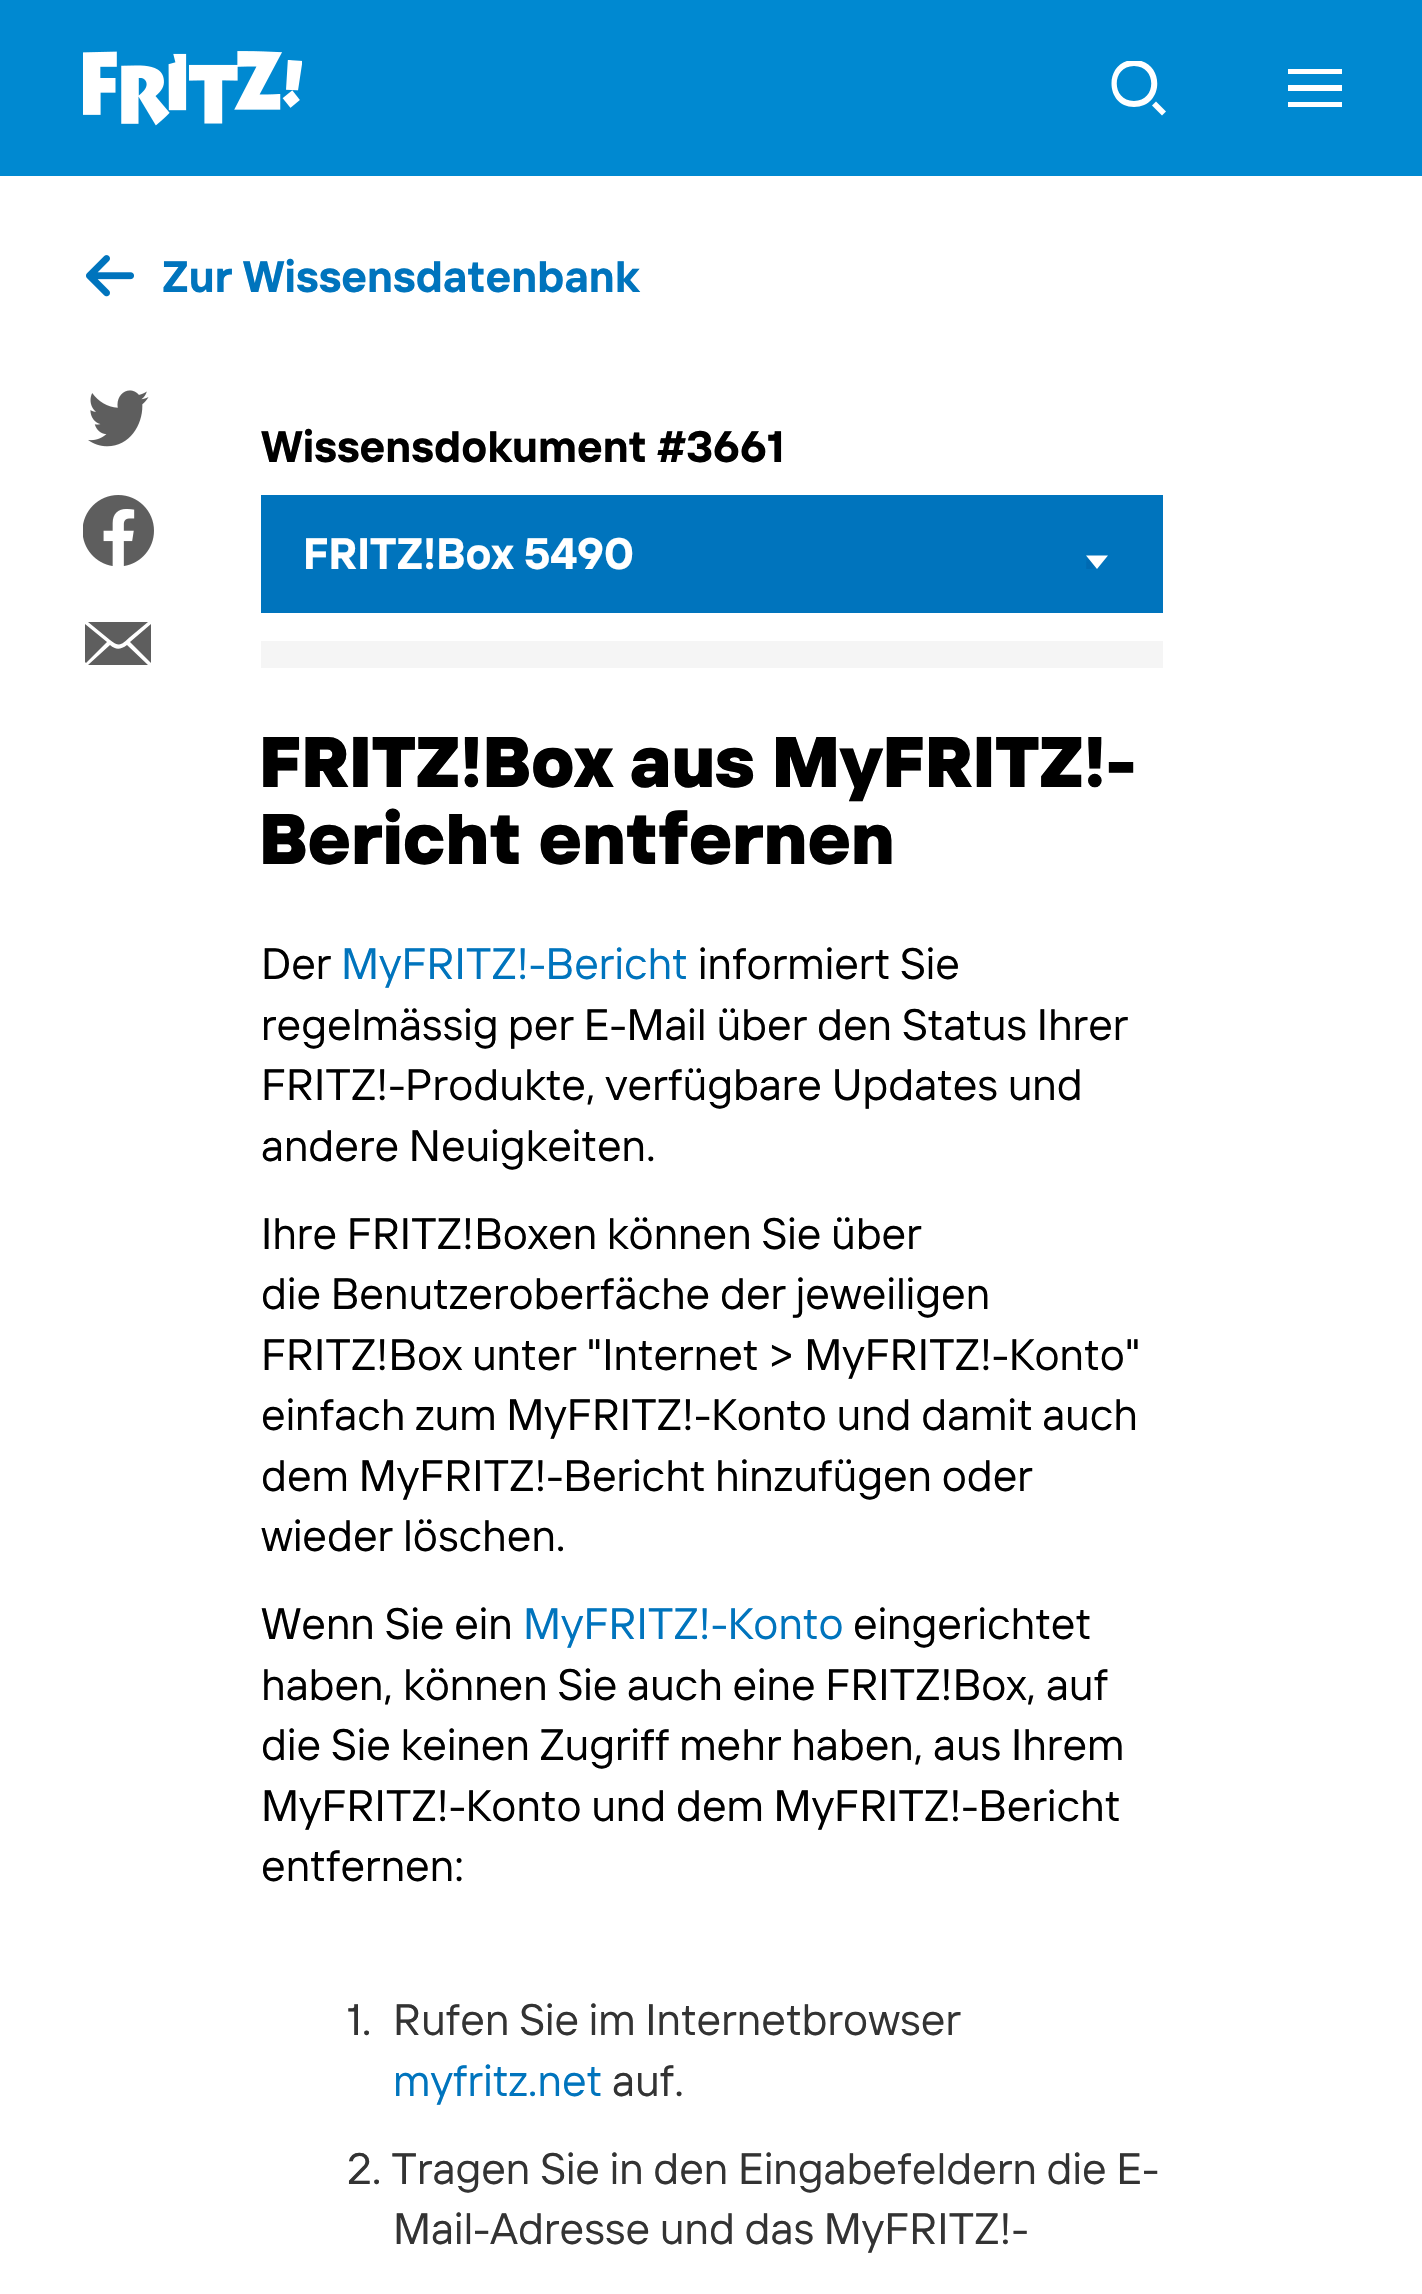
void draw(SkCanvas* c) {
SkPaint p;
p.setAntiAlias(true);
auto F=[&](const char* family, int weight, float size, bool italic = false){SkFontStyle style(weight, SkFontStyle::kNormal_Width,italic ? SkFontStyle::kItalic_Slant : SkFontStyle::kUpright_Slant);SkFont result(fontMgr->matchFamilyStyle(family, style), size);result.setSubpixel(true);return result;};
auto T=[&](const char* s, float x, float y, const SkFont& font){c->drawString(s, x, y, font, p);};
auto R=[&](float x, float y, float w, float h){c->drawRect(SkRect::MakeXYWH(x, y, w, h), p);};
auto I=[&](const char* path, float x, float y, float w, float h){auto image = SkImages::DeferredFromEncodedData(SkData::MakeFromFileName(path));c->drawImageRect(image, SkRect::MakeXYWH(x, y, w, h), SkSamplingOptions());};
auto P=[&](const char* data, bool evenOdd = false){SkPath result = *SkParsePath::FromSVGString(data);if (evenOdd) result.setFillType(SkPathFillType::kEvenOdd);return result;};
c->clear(0xffffffff);
p.setColor(0xff0089d1);
R(0,0,1422,176);
I("1.png",83,51,219,75);
c->save();
c->clipRect(SkRect::MakeXYWH(1111,61,55,55));
p.setColor(0xffffffff);
c->drawPath(P("M1134 107c-30 0-30-47 0-47c31 0 31 47 0 47zm0-41c-23 0-23 35 0 35c23 0 23-35 0-35z"),p);
c->restore();
c->drawPath(P("M1156 101.5l10 10l-4 4l-10-10z"),p);
R(1288,69,54,5);
R(1288,85,54,6);
R(1288,102,54,5);
I("2.png",88,390,61,57);
I("3.png",83,495,71,71);
p.setColor(0xff5e5e5e);
c->drawPath(P("M85 662v-38l22 18l-21 21zm3-40h60l-18 15c-8 7-10 11-20 3zm0 43l22-20c6 5 10 5 17 0l21 20zm42-23l21-18v39z"),p);
I("4.png",86,255,48,42);
auto f1 = F("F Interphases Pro",700,44);
p.setColor(0xff0074bd);
T("Zur Wissensdatenbank",162,292,f1);
p.setColor(0xfff5f5f5);
R(261,641,902,27);
p.setColor(0xff000000);
T("Wissensdokument #3661",261,462,f1);
p.setColor(0xff0074bd);
R(261,495,902,118);
p.setColor(0xffffffff);
T("FRITZ!Box 5490",303,569,f1);
I("5.png",1086,555,11,14);
c->drawPath(P("M1086 555.5h22l-11 13.5z"),p);
auto f2 = F("F Interphases Pro",900,71.5);
p.setColor(0xff000000);
T("FRITZ!Box aus MyFRITZ!-",259,787,f2);
T("Bericht entfernen",259,864,f2);
auto f3 = F("F Interphases Pro",400,44);
T("Der",261,979,f3);
p.setColor(0xff0074bd);
T("MyFRITZ!-Bericht",341,979,f3);
p.setColor(0xff000000);
T("informiert Sie",698,979,f3);
T("regelmässig per E-Mail über den Status Ihrer",261,1040,f3);
T("FRITZ!-Produkte, verfügbare Updates und",261,1100,f3);
T("andere Neuigkeiten.",261,1161,f3);
T("Ihre FRITZ!Boxen können Sie über",261,1249,f3);
T("die Benutzeroberfäche der jeweiligen",261,1309,f3);
T("FRITZ!Box unter \"Internet > MyFRITZ!-Konto\"",261,1370,f3);
T("einfach zum MyFRITZ!-Konto und damit auch",261,1430,f3);
T("dem MyFRITZ!-Bericht hinzufügen oder",261,1491,f3);
T("wieder löschen.",261,1551,f3);
T("Wenn Sie ein",261,1639,f3);
p.setColor(0xff0074bd);
T("MyFRITZ!-Konto",523,1639,f3);
p.setColor(0xff000000);
T("eingerichtet",853,1639,f3);
T("haben, können Sie auch eine FRITZ!Box, auf",261,1700,f3);
T("die Sie keinen Zugriff mehr haben, aus Ihrem",261,1760,f3);
T("MyFRITZ!-Konto und dem MyFRITZ!-Bericht",261,1821,f3);
T("entfernen:",261,1881,f3);
p.setColor(0xff333333);
T("1.",347,2035,f3);
T("Rufen Sie im Internetbrowser",393,2035,f3);
p.setColor(0xff0074bd);
T("myfritz.net",393,2096,f3);
p.setColor(0xff333333);
T("auf.",612,2096,f3);
T("2. Tragen Sie in den Eingabefeldern die E-",347,2184,f3);
T("Mail-Adresse und das MyFRITZ!-",393,2244,f3);
}
